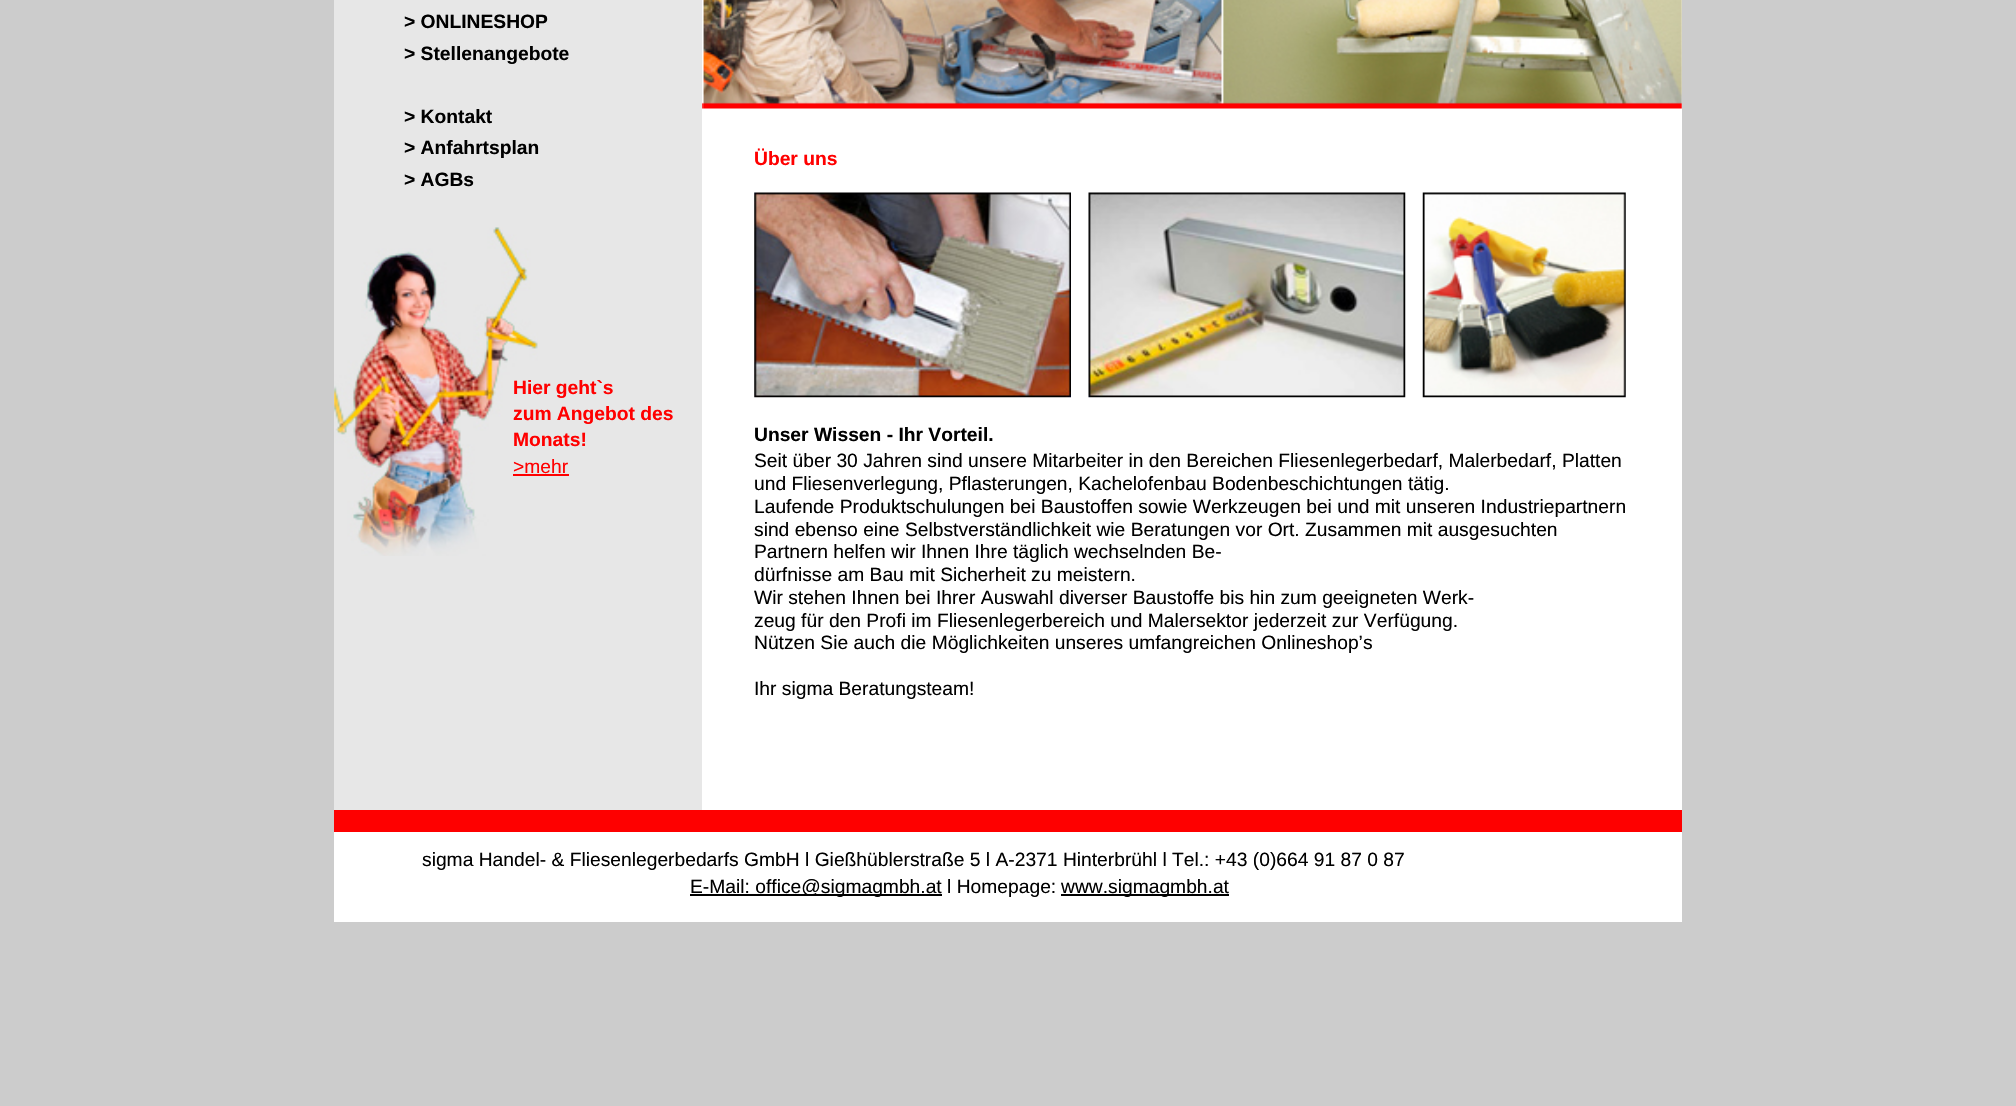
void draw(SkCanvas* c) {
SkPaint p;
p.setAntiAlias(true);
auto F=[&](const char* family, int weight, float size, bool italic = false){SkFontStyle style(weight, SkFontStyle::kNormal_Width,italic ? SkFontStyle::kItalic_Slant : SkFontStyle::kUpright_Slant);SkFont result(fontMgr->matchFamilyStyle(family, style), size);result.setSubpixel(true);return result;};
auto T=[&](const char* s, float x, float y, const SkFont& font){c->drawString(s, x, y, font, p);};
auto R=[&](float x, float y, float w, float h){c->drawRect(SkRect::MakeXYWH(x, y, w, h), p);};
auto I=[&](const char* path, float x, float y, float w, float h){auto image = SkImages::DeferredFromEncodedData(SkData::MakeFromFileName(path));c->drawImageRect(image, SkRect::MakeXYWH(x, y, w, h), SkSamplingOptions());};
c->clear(0xffcccccc);
p.setColor(0xffffffff);
R(702,0,980,810);
p.setColor(0xffe7e7e7);
R(334,0,368,810);
auto f1 = F("Liberation Sans",700,19.25);
p.setColor(0xff000000);
T("> ONLINESHOP",404,28,f1);
T("> Stellenangebote",404,60,f1);
T("> Kontakt",404,123,f1);
T("> Anfahrtsplan",404,154,f1);
T("> AGBs",404,186,f1);
I("1.png",334,227,204,329);
p.setColor(0xffff0000);
T("Hier geht`s",513,394,f1);
T("zum Angebot des",513,420,f1);
T("Monats!",513,446,f1);
auto f2 = F("Liberation Sans",400,19.25);
T(">mehr",513,473,f2);
R(513,474,56,2);
I("2.png",702,0,980,109);
T("Über uns",754,165,f1);
I("3.png",754,192,317,206);
I("4.png",1088,192,318,206);
I("5.png",1422,192,204,206);
p.setColor(0xff000000);
T("Unser Wissen - Ihr Vorteil.",754,441,f1);
T("Seit über 30 Jahren sind unsere Mitarbeiter in den Bereichen Fliesenlegerbedarf, Malerbedarf, Platten",754,467,f2);
T("und Fliesenverlegung, Pflasterungen, Kachelofenbau Bodenbeschichtungen tätig.",754,490,f2);
T("Laufende Produktschulungen bei Baustoffen sowie Werkzeugen bei und mit unseren Industriepartnern",754,513,f2);
T("sind ebenso eine Selbstverständlichkeit wie Beratungen vor Ort. Zusammen mit ausgesuchten",754,536,f2);
T("Partnern helfen wir Ihnen Ihre täglich wechselnden Be-",754,558,f2);
T("dürfnisse am Bau mit Sicherheit zu meistern.",754,581,f2);
T("Wir stehen Ihnen bei Ihrer Auswahl diverser Baustoffe bis hin zum geeigneten Werk-",754,604,f2);
T("zeug für den Profi im Fliesenlegerbereich und Malersektor jederzeit zur Verfügung.",754,627,f2);
T("Nützen Sie auch die Möglichkeiten unseres umfangreichen Onlineshop’s",754,649,f2);
T("Ihr sigma Beratungsteam!",754,695,f2);
p.setColor(0xffffffff);
R(334,832,1348,90);
p.setColor(0xfffe0000);
R(334,810,1348,22);
p.setColor(0xff000000);
T("sigma Handel- & Fliesenlegerbedarfs GmbH l Gießhüblerstraße 5 l A-2371 Hinterbrühl l Tel.: +43 (0)664 91 87 0 87",422,866,f2);
R(690,894,252,2);
T("E-Mail: office@sigmagmbh.at l Homepage:",690,893,f2);
R(1061,894,168,2);
T("www.sigmagmbh.at",1061,893,f2);
}
